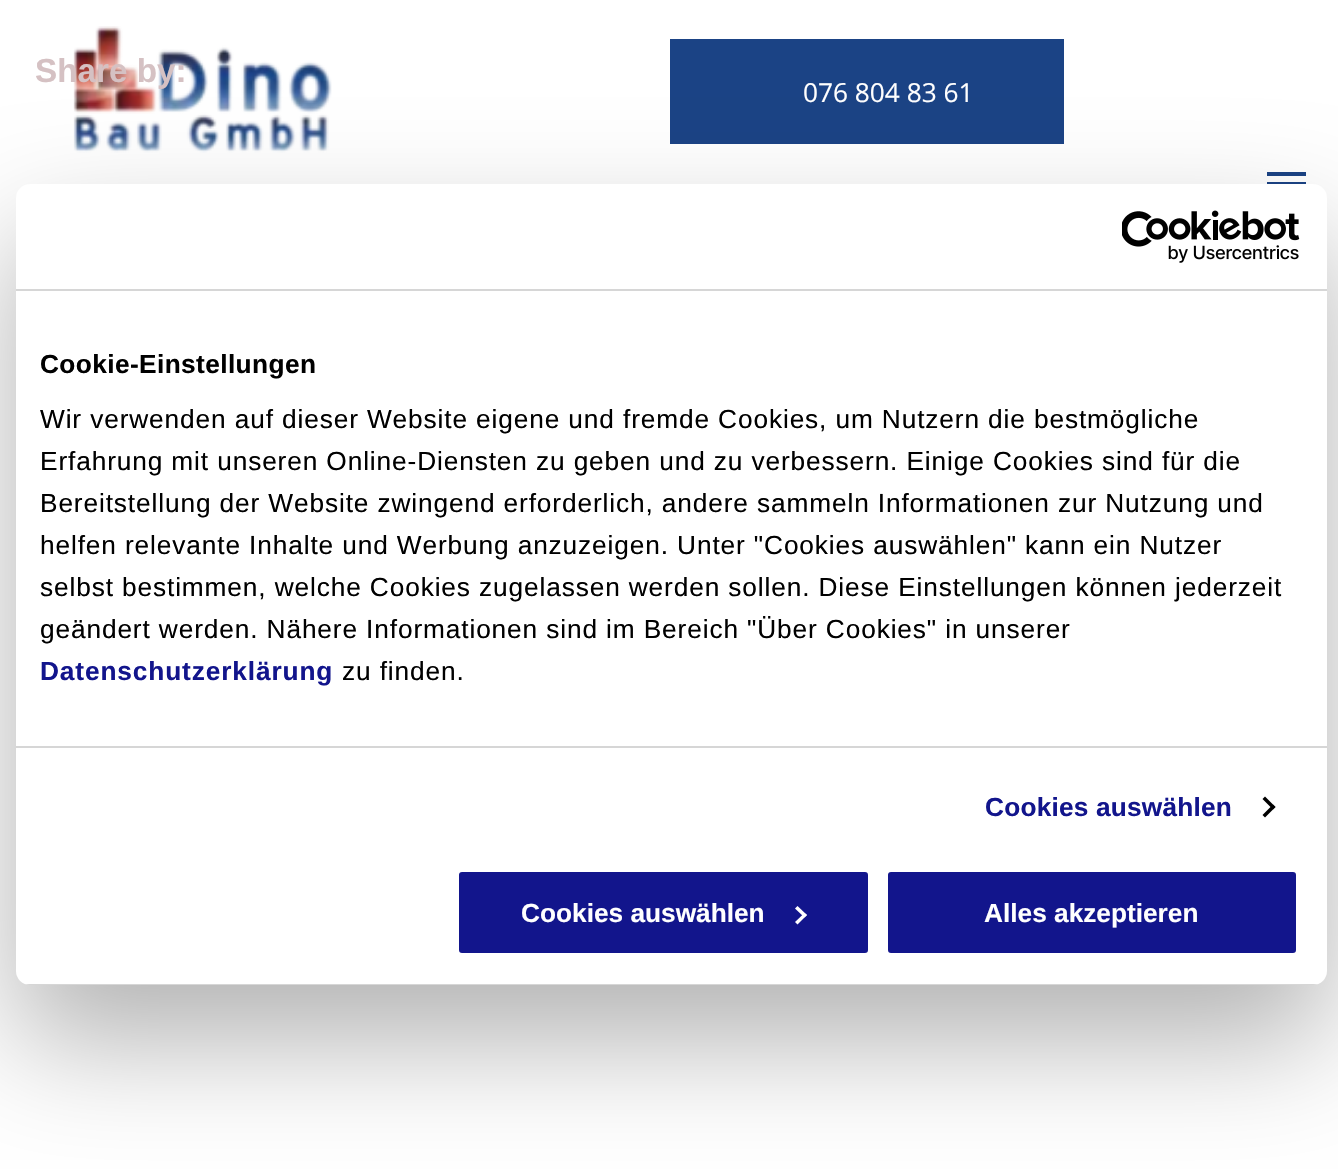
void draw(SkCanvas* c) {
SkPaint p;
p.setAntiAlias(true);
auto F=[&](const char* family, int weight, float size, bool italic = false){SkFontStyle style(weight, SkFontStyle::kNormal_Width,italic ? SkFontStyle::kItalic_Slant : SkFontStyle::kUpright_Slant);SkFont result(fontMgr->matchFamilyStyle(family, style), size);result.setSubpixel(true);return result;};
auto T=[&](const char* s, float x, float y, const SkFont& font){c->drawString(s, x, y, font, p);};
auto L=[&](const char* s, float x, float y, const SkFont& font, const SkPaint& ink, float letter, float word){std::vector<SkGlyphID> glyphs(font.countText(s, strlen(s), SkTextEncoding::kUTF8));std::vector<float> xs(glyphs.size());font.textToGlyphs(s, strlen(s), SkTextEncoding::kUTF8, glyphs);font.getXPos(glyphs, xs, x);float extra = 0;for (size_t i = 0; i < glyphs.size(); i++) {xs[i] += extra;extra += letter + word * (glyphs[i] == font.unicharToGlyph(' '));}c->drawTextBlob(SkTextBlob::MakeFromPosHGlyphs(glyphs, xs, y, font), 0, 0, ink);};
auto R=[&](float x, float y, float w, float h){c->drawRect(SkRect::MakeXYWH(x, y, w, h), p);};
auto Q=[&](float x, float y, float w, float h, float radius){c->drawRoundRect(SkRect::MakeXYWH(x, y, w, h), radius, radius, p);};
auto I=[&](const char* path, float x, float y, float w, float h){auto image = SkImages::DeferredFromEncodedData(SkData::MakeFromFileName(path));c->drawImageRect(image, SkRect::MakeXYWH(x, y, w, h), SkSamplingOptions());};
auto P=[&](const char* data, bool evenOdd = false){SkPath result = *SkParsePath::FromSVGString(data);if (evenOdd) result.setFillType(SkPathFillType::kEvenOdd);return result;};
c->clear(0xffffffff);
I("1.png",73,26,259,127);
auto f1 = F("Liberation Sans",700,33.25);
p.setColor(0xffd5c1c3);
T("Share by:",35,82,f1);
p.setColor(0xff1b4385);
R(670,39,394,105);
auto f2 = F("Open Sans",400,26.25);
p.setColor(0xffffffff);
T("076 804 83 61",803,102,f2);
p.setColor(0xff1b4385);
R(1267,172,39,4);
R(1267,182,39,2);
p.setColor(0x4d000000);
p.setMaskFilter(SkMaskFilter::MakeBlur(kNormal_SkBlurStyle, 59.5));
c->drawRoundRect(SkRect::MakeXYWH(16,240,1311,801),14,14,p);
p.setMaskFilter(nullptr);
p.setColor(0xffffffff);
Q(16,184,1311,801,14);
p.setColor(0xffd6d6d6);
R(16,289,1311,2);
I("2.png",1122,210,178,53);
R(16,746,1311,2);
auto f3 = F("Liberation Sans",700,26.25);
p.setColor(0xff000000);
L("Cookie-Einstellungen",40,373,f3,p,.4,0);
auto f4 = F("Liberation Sans",400,26.25);
L("Wir verwenden auf dieser Website eigene und fremde Cookies, um Nutzern die bestmögliche",40,428,f4,p,.88,0);
L("Erfahrung mit unseren Online-Diensten zu geben und zu verbessern. Einige Cookies sind für die",40,470,f4,p,.88,0);
L("Bereitstellung der Website zwingend erforderlich, andere sammeln Informationen zur Nutzung und",40,512,f4,p,.88,0);
L("helfen relevante Inhalte und Werbung anzuzeigen. Unter \"Cookies auswählen\" kann ein Nutzer",40,554,f4,p,.88,0);
L("selbst bestimmen, welche Cookies zugelassen werden sollen. Diese Einstellungen können jederzeit",40,596,f4,p,.88,0);
L("geändert werden. Nähere Informationen sind im Bereich \"Über Cookies\" in unserer",40,638,f4,p,.88,0);
p.setColor(0xff12158c);
L("Datenschutzerklärung",40,680,f3,p,.88,0);
p.setColor(0xff000000);
L("zu finden.",342,680,f4,p,.88,0);
p.setColor(0xff12158c);
L("Cookies auswählen",985,816,f3,p,.2,0);
p.setColor(0xff000000);
c->drawPath(P("M1265 796.5l10.5 10.5l-2.5 2.5l-10.5-10.5z"),p);
c->drawPath(P("M1273 804.5l2.5 2.5l-10.5 10.5l-2.5-2.5z"),p);
c->save();
c->clipPath(P("M30 184h1283c7.5 0 14 6.5 14 14v773c0 7.5-6.5 14-14 14h-1283c-7.5 0-14-6.5-14-14v-773c0-7.5 6.5-14 14-14z"),true);
p.setColor(0xffd6d6d6);
R(25,984,1293,1);
c->restore();
p.setColor(0xff12158c);
c->drawRoundRect(SkRect::MakeXYWH(457,870,413,85),5,5,p);
p.setStroke(true);
p.setStrokeWidth(4);
p.setColor(0xffffffff);
c->drawRoundRect(SkRect::MakeXYWH(457,870,413,85),5,5,p);
p.setStroke(false);
T("Cookies auswählen",521,922,f3);
c->drawPath(P("M797.5 906l9.5 9l-2.5 2.5l-9.5-9z"),p);
c->drawPath(P("M804.5 913l2.5 2l-9.5 9.5l-2.5-2.5z"),p);
p.setColor(0xff12158c);
c->drawRoundRect(SkRect::MakeXYWH(886,870,412,85),5,5,p);
p.setStroke(true);
p.setColor(0xffffffff);
c->drawRoundRect(SkRect::MakeXYWH(886,870,412,85),5,5,p);
p.setStroke(false);
T("Alles akzeptieren",984,922,f3);
}
